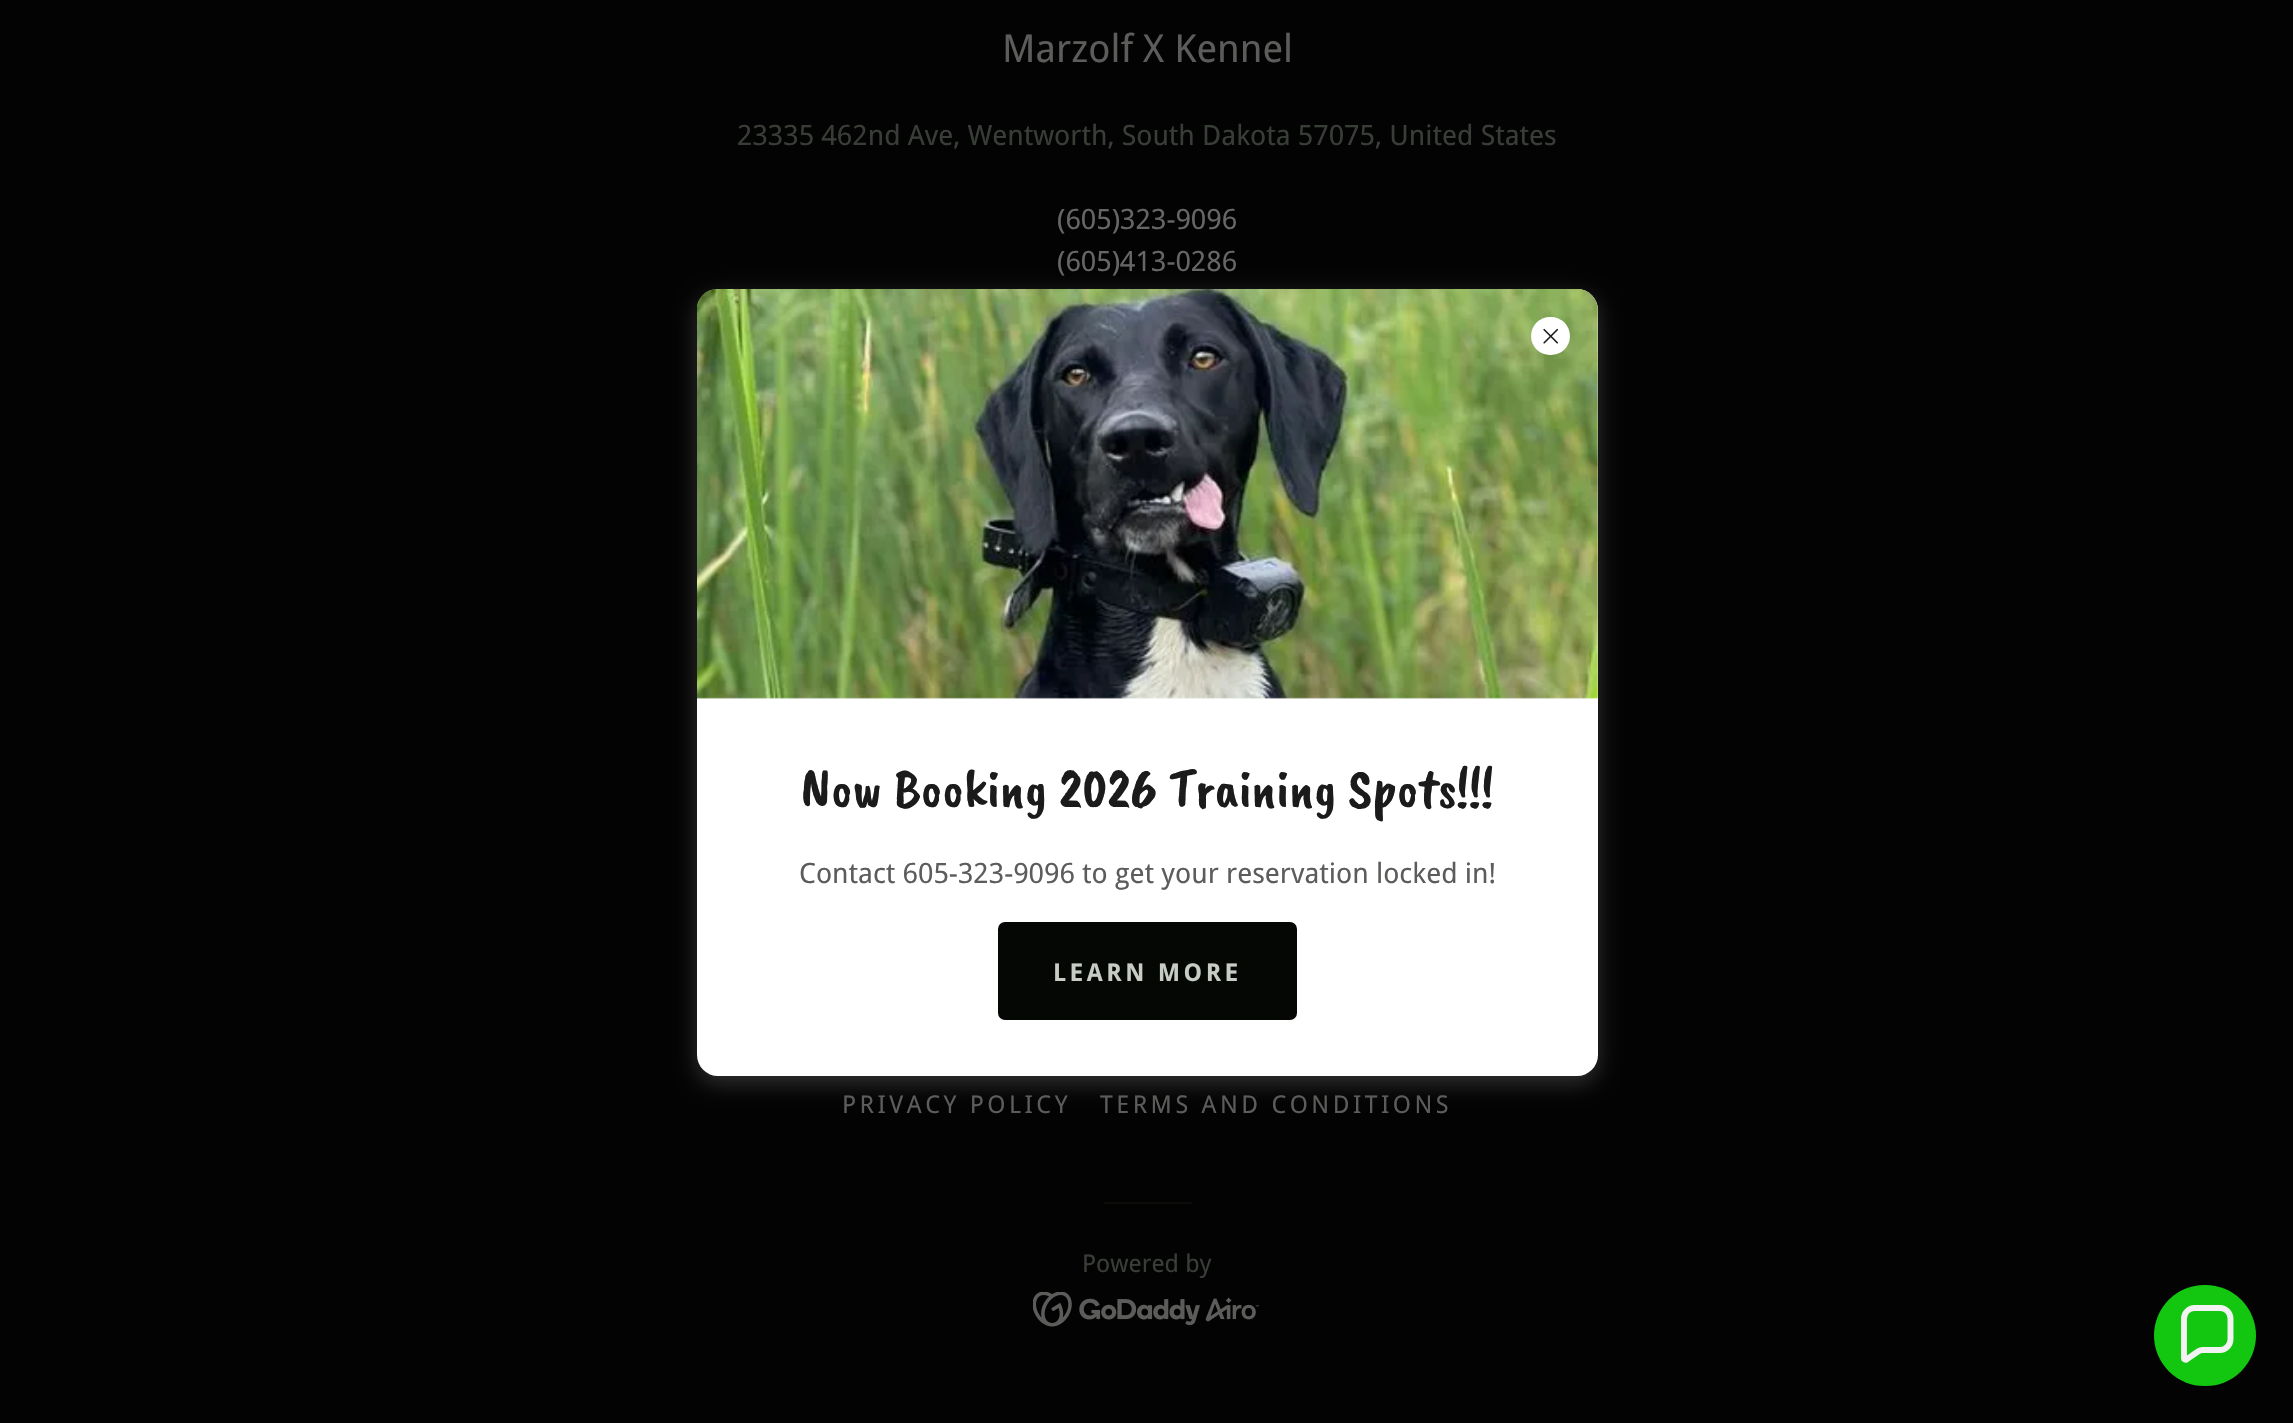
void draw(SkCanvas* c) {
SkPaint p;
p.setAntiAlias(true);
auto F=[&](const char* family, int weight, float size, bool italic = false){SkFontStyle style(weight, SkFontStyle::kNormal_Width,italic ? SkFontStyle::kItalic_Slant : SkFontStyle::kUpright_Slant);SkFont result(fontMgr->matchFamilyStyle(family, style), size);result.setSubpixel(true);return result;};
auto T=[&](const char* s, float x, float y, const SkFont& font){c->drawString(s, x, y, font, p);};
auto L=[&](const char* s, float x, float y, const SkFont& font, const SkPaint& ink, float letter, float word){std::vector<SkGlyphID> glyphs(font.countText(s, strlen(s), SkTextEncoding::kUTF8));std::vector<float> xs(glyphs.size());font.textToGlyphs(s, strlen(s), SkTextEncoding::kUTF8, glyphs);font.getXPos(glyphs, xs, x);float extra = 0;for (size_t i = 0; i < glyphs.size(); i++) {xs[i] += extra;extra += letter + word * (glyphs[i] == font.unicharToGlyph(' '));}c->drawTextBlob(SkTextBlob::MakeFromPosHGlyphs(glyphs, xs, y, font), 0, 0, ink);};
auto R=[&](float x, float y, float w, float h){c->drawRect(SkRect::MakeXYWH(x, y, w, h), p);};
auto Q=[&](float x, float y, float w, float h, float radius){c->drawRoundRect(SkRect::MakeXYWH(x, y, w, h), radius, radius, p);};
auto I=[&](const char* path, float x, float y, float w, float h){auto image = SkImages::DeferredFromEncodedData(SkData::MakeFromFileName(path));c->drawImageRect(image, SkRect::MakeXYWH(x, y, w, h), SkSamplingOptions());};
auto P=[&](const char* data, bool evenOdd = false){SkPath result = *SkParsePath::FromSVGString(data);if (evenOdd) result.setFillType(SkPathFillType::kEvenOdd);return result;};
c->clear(0xff020302);
auto f1 = F("Droid Sans",400,38.5);
p.setColor(0xff5c5d5b);
T("Marzolf X Kennel",1002,62,f1);
auto f2 = F("Droid Sans",400,28);
p.setColor(0xff393d37);
T("23335 462nd Ave, Wentworth, South Dakota 57075, United States",737,145,f2);
p.setColor(0xff666666);
T("(605)323-9096",1057,229,f2);
T("(605)413-0286",1057,271,f2);
p.setColor(0x66757575);
p.setMaskFilter(SkMaskFilter::MakeBlur(kNormal_SkBlurStyle, 10.5));
c->drawRoundRect(SkRect::MakeXYWH(697,296,901,787),21,21,p);
p.setMaskFilter(nullptr);
p.setColor(0xffffffff);
Q(697,289,901,787,21);
I("2.png",697,289,901,410);
Q(1531,317,39,38,19);
I("1.png",1543,328,16,16);
auto f3 = F("Caveat Brush",400,56);
p.setColor(0xff1b1b1b);
T("Now Booking 2026 Training Spots!!!",801,807,f3);
p.setColor(0xff5c5d5b);
T("Contact 605-323-9096 to get your reservation locked in!",799,883,f2);
p.setColor(0xff050704);
Q(998,922,299,98,7);
auto f4 = F("Droid Sans",700,24.5);
p.setColor(0xffc7cdc4);
L("LEARN MORE",1053,981,f4,p,3.5,0);
auto f5 = F("Droid Sans",400,24.5);
p.setColor(0xff5c5d5b);
L("PRIVACY POLICY",842,1113,f5,p,3.5,0);
L("TERMS AND CONDITIONS",1100,1113,f5,p,3.5,0);
p.setColor(0xff0b0d09);
R(1104,1202,88,2);
p.setColor(0xff393d37);
T("Powered by",1082,1272,f5);
I("3.png",1033,1292,226,35);
p.setColor(0xff13c710);
Q(2154,1285,102,101,50.5);
p.setStroke(true);
p.setStrokeWidth(5.9);
p.setColor(0xfff2f2f2);
c->drawPath(P("M2220 1308h-25.5c-5.5 0-10.5 4.5-10.5 10.5v40c0 1 1.5 1.5 2.5 1l11.5-8c1.5-1 3-1.5 4.5-1.5h17.5c5.5 0 10.5-5 10.5-10.5v-21c0-6-5-10.5-10.5-10.5z"),p);
}
